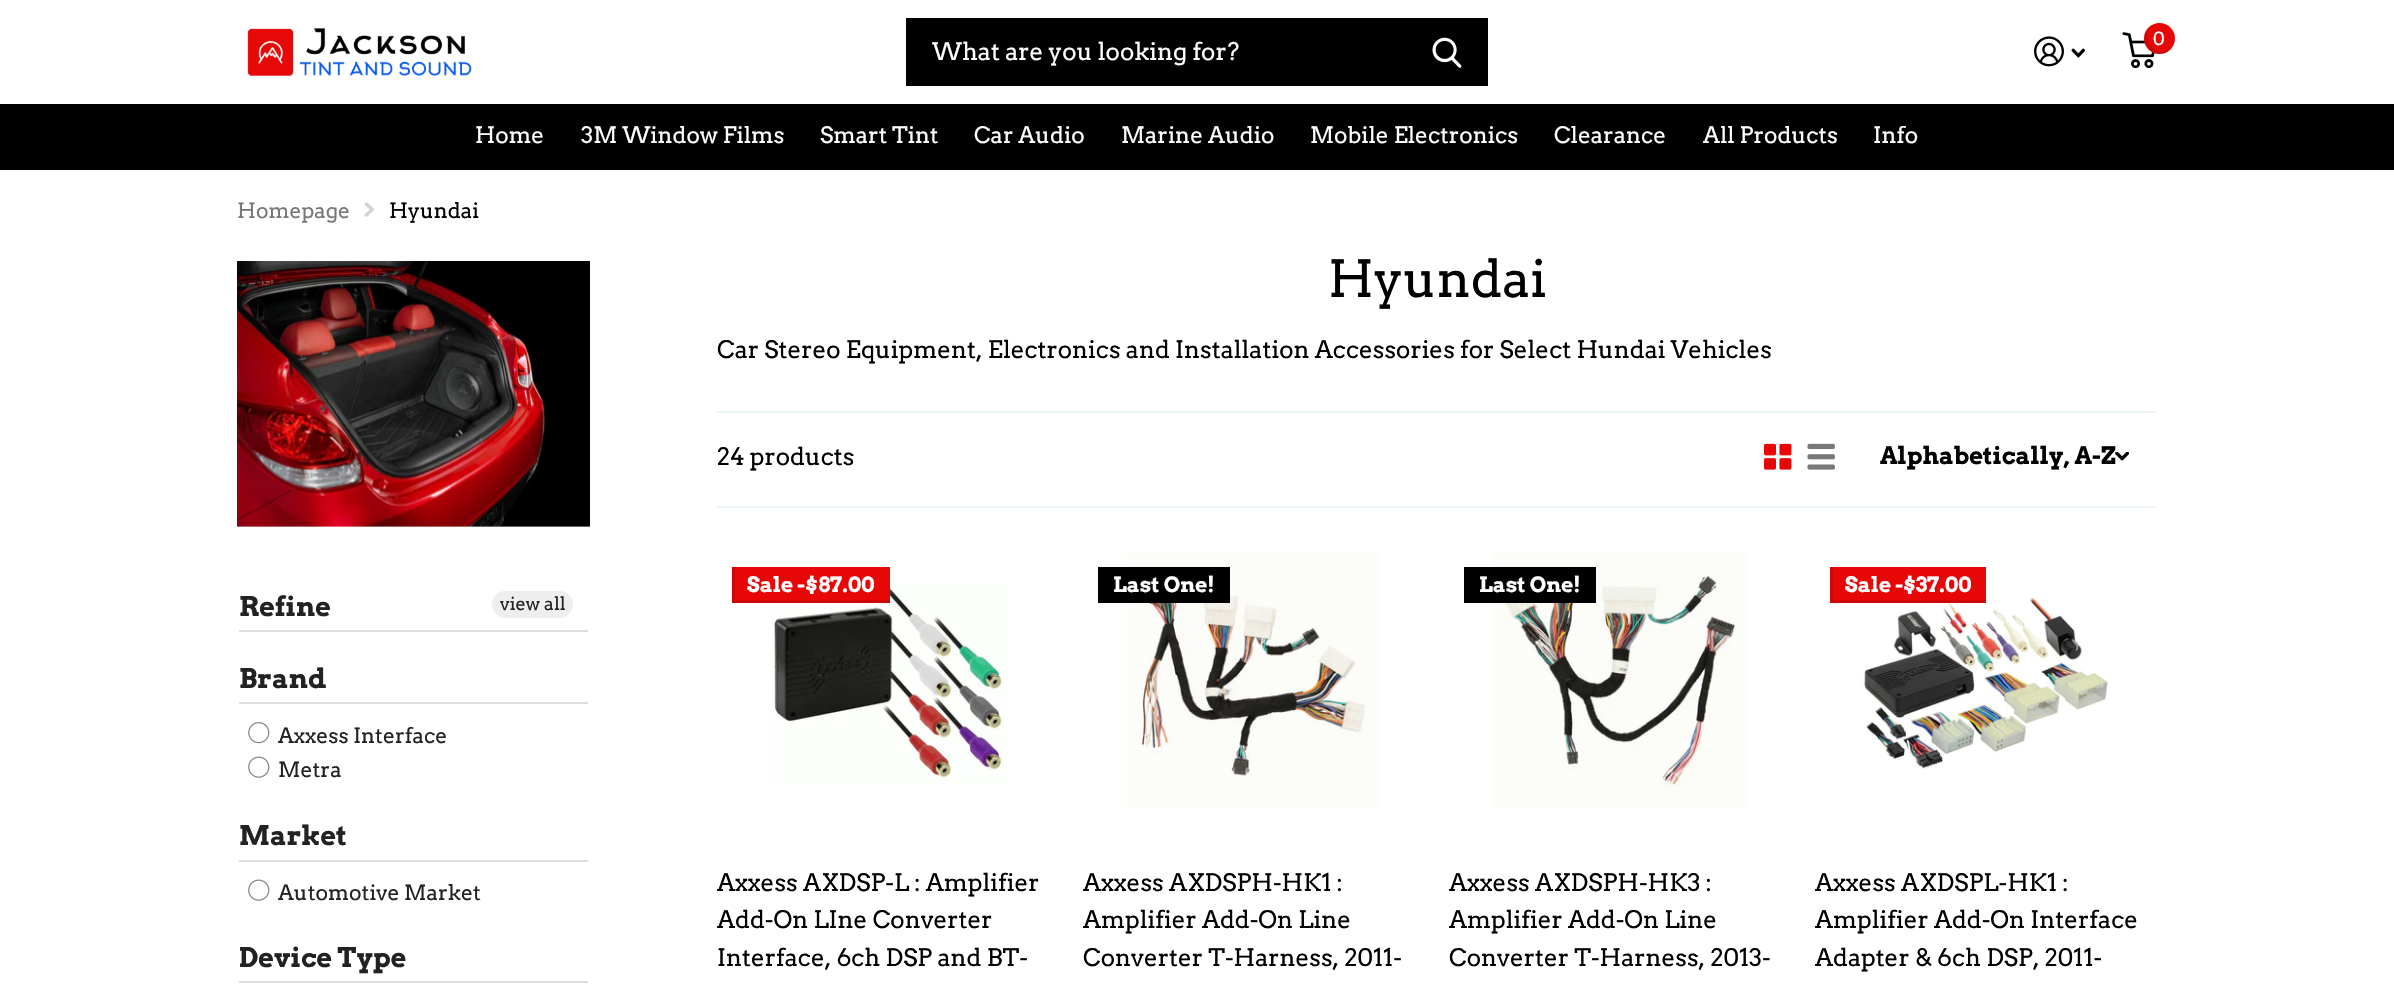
void draw(SkCanvas* c) {
SkPaint p;
p.setAntiAlias(true);
auto F=[&](const char* family, int weight, float size, bool italic = false){SkFontStyle style(weight, SkFontStyle::kNormal_Width,italic ? SkFontStyle::kItalic_Slant : SkFontStyle::kUpright_Slant);SkFont result(fontMgr->matchFamilyStyle(family, style), size);result.setSubpixel(true);return result;};
auto T=[&](const char* s, float x, float y, const SkFont& font){c->drawString(s, x, y, font, p);};
auto R=[&](float x, float y, float w, float h){c->drawRect(SkRect::MakeXYWH(x, y, w, h), p);};
auto Q=[&](float x, float y, float w, float h, float radius){c->drawRoundRect(SkRect::MakeXYWH(x, y, w, h), radius, radius, p);};
auto I=[&](const char* path, float x, float y, float w, float h){auto image = SkImages::DeferredFromEncodedData(SkData::MakeFromFileName(path));c->drawImageRect(image, SkRect::MakeXYWH(x, y, w, h), SkSamplingOptions());};
auto P=[&](const char* data, bool evenOdd = false){SkPath result = *SkParsePath::FromSVGString(data);if (evenOdd) result.setFillType(SkPathFillType::kEvenOdd);return result;};
c->clear(0xffffffff);
I("1.png",2034,36,30,31);
I("2.png",2071,48,14,10);
I("3.png",2122,32,33,37);
p.setColor(0xffe70707);
c->drawCircle(2159.5,38.5,15.5,p);
p.setColor(0x1a000000);
c->drawPath(P("M2171.5 48c-2.5 2-5.5 3-9.5 3c-14 0-18-15-12.5-24c-7 5.5-7.5 16-1 22.5c6.5 6.5 17.5 5.5 23-1.5z"),p);
auto f1 = F("Arvo",400,18);
p.setColor(0xffffffff);
T("0",2153,45,f1);
I("4.png",247,28,225,49);
p.setColor(0xff000000);
R(906,18,582,68);
c->save();
c->clipRect(SkRect::MakeXYWH(932,38,472,28));
auto f2 = F("Arvo",400,24);
p.setColor(0xffffffff);
T("What are you looking for?",932,60,f2);
c->restore();
I("5.png",1432,37,30,31);
p.setColor(0xff000000);
R(0,104,2394,66);
auto f3 = F("Arvo",400,22.5);
p.setColor(0xffffffff);
T("Home",475,143,f3);
T("3M Window Films",581,143,f3);
T("Smart Tint",820,143,f3);
T("Car Audio",974,143,f3);
T("Marine Audio",1121,143,f3);
T("Mobile Electronics",1310,143,f3);
T("Clearance",1554,143,f3);
T("All Products",1703,143,f3);
T("Info",1873,143,f3);
auto f4 = F("Arvo",400,21);
p.setColor(0xff787878);
T("Homepage",237,218,f4);
I("6.png",364,202,11,15);
p.setColor(0xff000000);
T("Hyundai",389,218,f4);
I("7.png",237,261,353,266);
p.setColor(0xffdddddd);
R(239,630,349,2);
auto f5 = F("Arvo",700,27);
p.setColor(0xff222222);
T("Refine",239,616,f5);
p.setColor(0xffeeeeee);
Q(492,591,81,27,13.5);
p.setColor(0xff222222);
T("view all",500,610,f1);
p.setColor(0xffdddddd);
R(239,702,349,2);
p.setColor(0xff222222);
T("Brand",239,688,f5);
I("8.png",248,722,22,22);
T("Axxess Interface",278,743,f4);
I("9.png",248,756,22,22);
T("Metra",278,777,f4);
p.setColor(0xffdddddd);
R(239,860,349,2);
p.setColor(0xff222222);
T("Market",239,845,f5);
I("9.png",248,879,22,22);
T("Automotive Market",278,900,f4);
p.setColor(0xffdddddd);
R(239,981,349,2);
p.setColor(0xff222222);
T("Device Type",239,967,f5);
auto f6 = F("Arvo",400,51);
p.setColor(0xff000000);
T("Hyundai",1328,297,f6);
T("Car Stereo Equipment, Electronics and Installation Accessories for Select Hundai Vehicles",717,358,f2);
p.setColor(0xffedf4f4);
R(717,411,1440,2);
R(717,506,1440,2);
p.setColor(0xff000000);
T("24 products",717,465,f2);
I("10.png",1764,443,28,27);
I("11.png",1807,443,28,27);
I("12.png",2115,452,14,9);
c->save();
c->clipRect(SkRect::MakeXYWH(1880,441,246,29));
auto f7 = F("Arvo",700,24);
T("Alphabetically, A-Z",1880,464,f7);
c->restore();
I("13.png",772,583,235,203);
p.setColor(0xffe70707);
R(735,567,155,33);
c->save();
c->clipRect(SkRect::MakeXYWH(732,567,158,36));
p.setColor(0xffce0606);
c->drawPath(P("M584 418h454v334h-454zm151 146h157v36h-157z",true),p);
c->restore();
auto f8 = F("Arvo",700,21);
p.setColor(0xffffffff);
T("Sale -$87.00",747,592,f8);
p.setColor(0xff000000);
T("Axxess AXDSP-L : Amplifier",717,891,f2);
T("Add-On LIne Converter",717,928,f2);
T("Interface, 6ch DSP and BT-",717,966,f2);
I("14.png",1127,552,254,256);
R(1098,567,132,36);
p.setColor(0xffffffff);
T("Last One!",1113,592,f8);
p.setColor(0xff000000);
T("Axxess AXDSPH-HK1 :",1083,891,f2);
T("Amplifier Add-On Line",1083,928,f2);
T("Converter T-Harness, 2011-",1083,966,f2);
I("15.png",1493,552,254,256);
R(1464,567,132,36);
p.setColor(0xffffffff);
T("Last One!",1479,592,f8);
p.setColor(0xff000000);
T("Axxess AXDSPH-HK3 :",1449,891,f2);
T("Amplifier Add-On Line",1449,928,f2);
T("Converter T-Harness, 2013-",1449,966,f2);
I("16.png",1862,596,246,174);
p.setColor(0xffe70707);
R(1833,567,153,33);
c->save();
c->clipRect(SkRect::MakeXYWH(1830,567,156,36));
p.setColor(0xffce0606);
c->drawPath(P("M1682 418h452v334h-452zm151 146h156v36h-156z",true),p);
c->restore();
p.setColor(0xffffffff);
T("Sale -$37.00",1845,592,f8);
p.setColor(0xff000000);
T("Axxess AXDSPL-HK1 :",1815,891,f2);
T("Amplifier Add-On Interface",1815,928,f2);
T("Adapter & 6ch DSP, 2011-",1815,966,f2);
}
